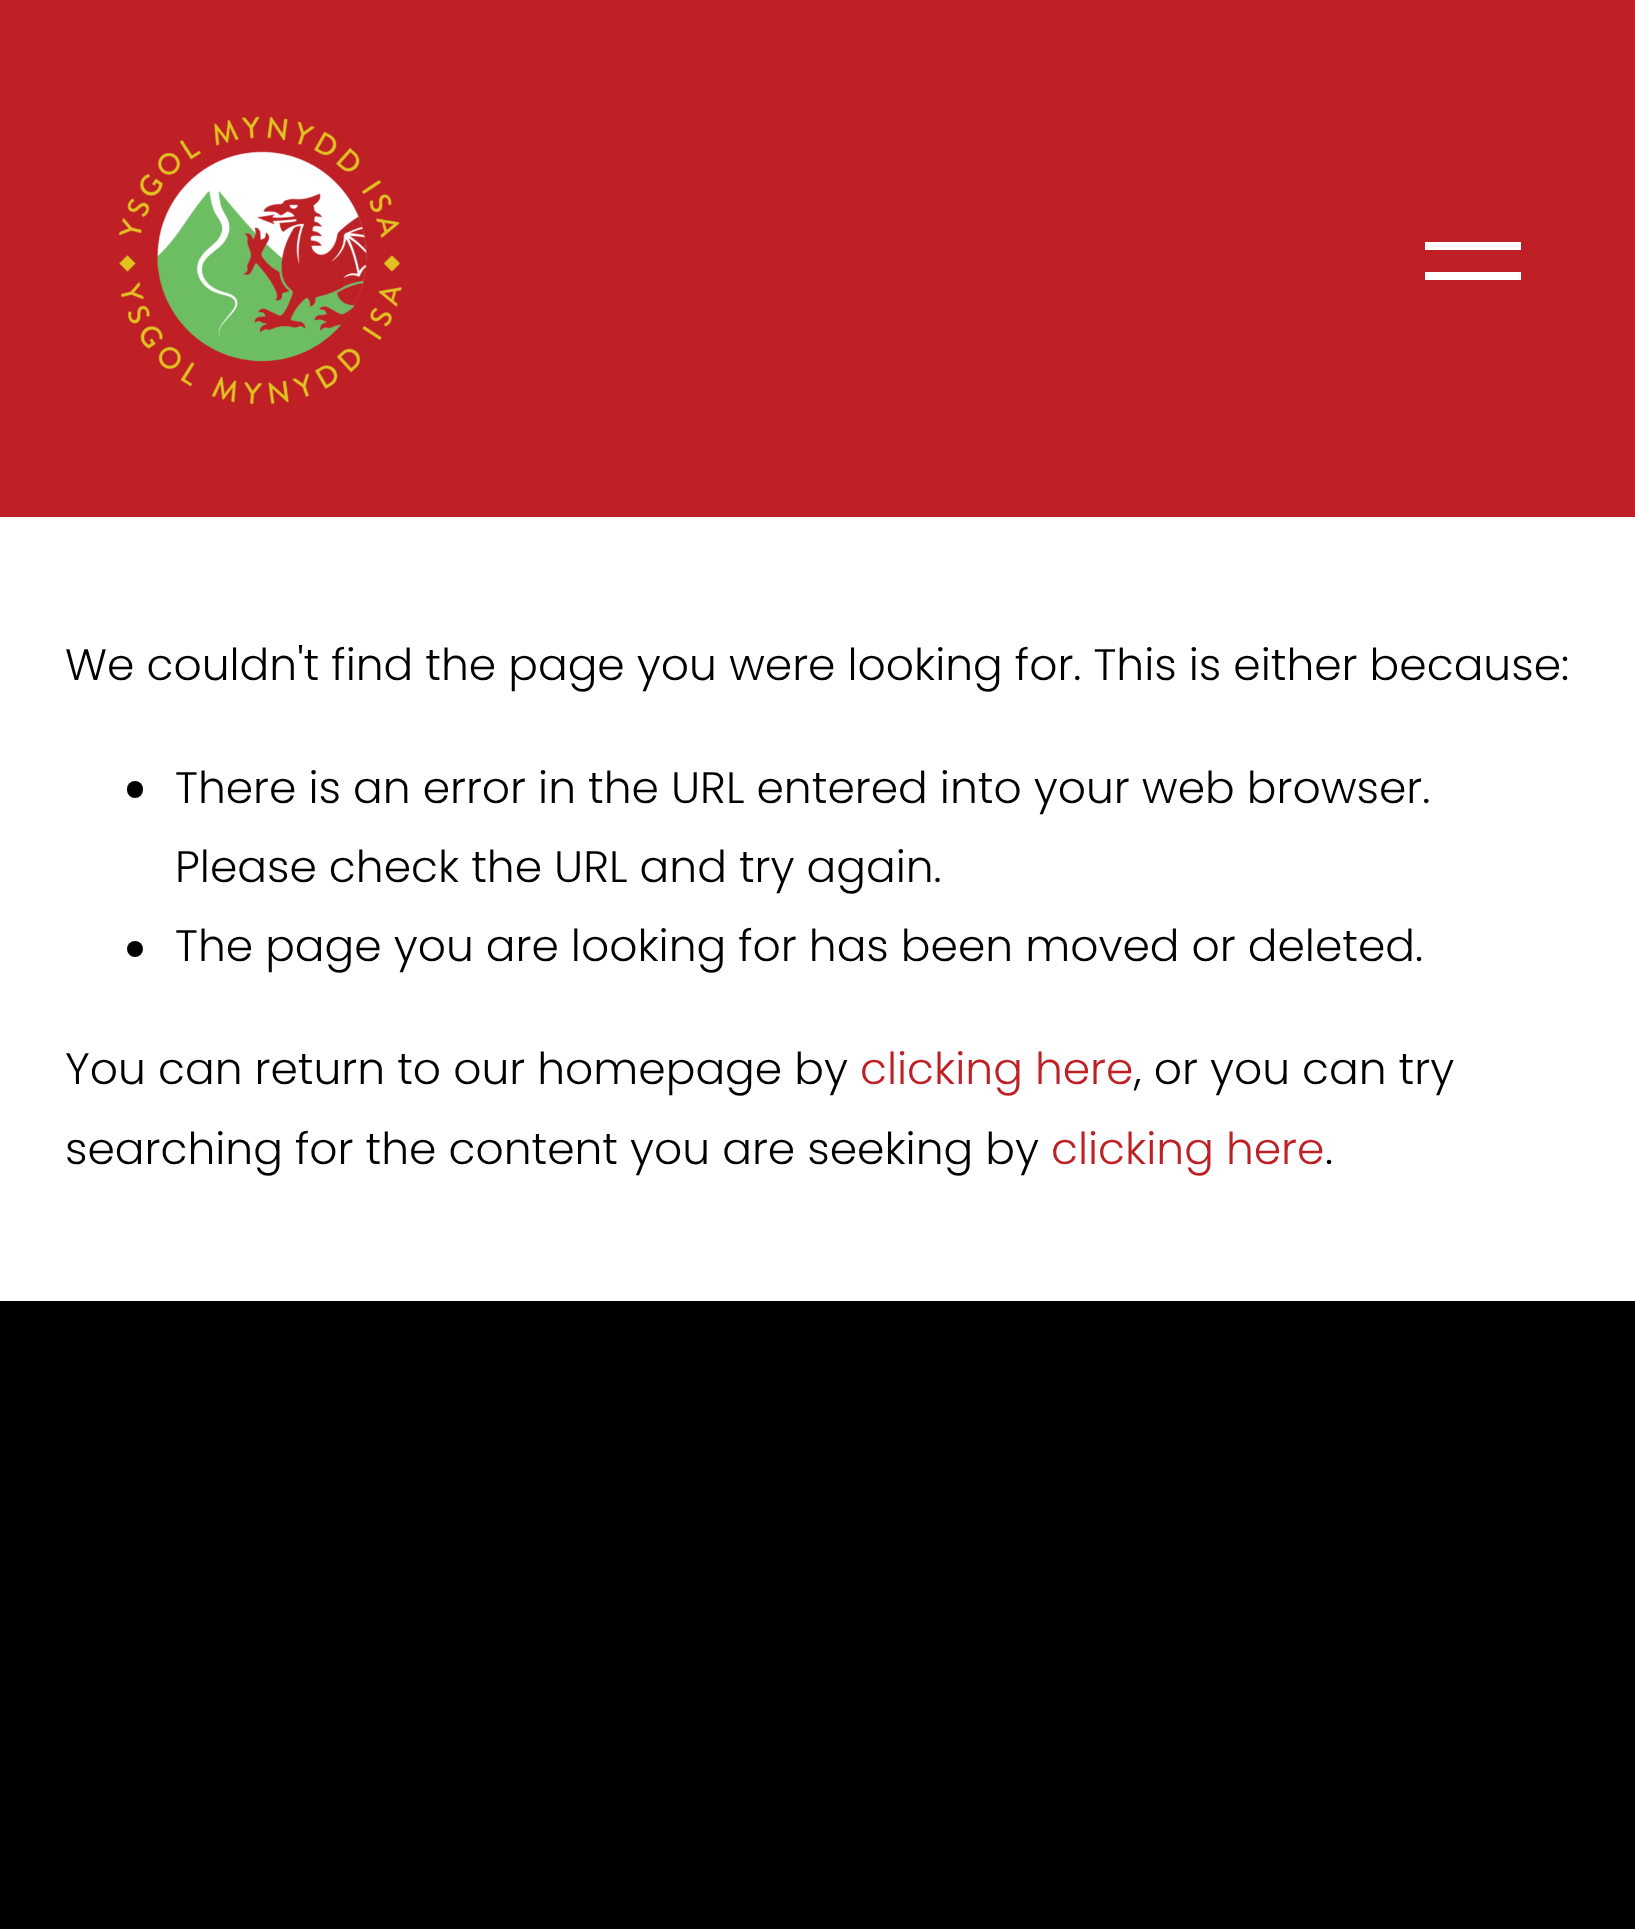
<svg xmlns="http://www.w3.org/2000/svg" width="1635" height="1929">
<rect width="100%" height="100%" fill="#fff"/>
<rect width="1635" height="517" fill="#bf2025"/>
<image x="118" y="116" width="284" height="289" href="media/1.png"/>
<rect x="1425" y="242" width="96" height="8" fill="#fff"/>
<rect x="1425" y="272" width="96" height="8" fill="#fff"/>
<text x="65" y="680" style="font-family:Poppins;font-size:44px;font-weight:300;fill:#000">We couldn't find the page you were looking for. This is either because:</text>
<rect x="127" y="781" width="16" height="17" rx="8" fill="#000"/>
<text x="175" y="803" style="font-family:Poppins;font-size:44px;font-weight:300;fill:#000">There is an error in the URL entered into your web browser.</text>
<text x="175" y="882" style="font-family:Poppins;font-size:44px;font-weight:300;fill:#000">Please check the URL and try again.</text>
<circle cx="135" cy="949" r="8" fill="#000"/>
<text x="175" y="961" style="font-family:Poppins;font-size:44px;font-weight:300;fill:#000">The page you are looking for has been moved or deleted.</text>
<text x="65" y="1084" style="font-family:Poppins;font-size:44px;font-weight:300;fill:#000">You can return to our homepage by</text>
<text x="860" y="1084" style="font-family:Poppins;font-size:44px;font-weight:300;fill:#bf2025">clicking here</text>
<text x="1134" y="1084" style="font-family:Poppins;font-size:44px;font-weight:300;fill:#000">, or you can try</text>
<text x="65" y="1164" style="font-family:Poppins;font-size:44px;font-weight:300;fill:#000">searching for the content you are seeking by</text>
<text x="1051" y="1164" style="font-family:Poppins;font-size:44px;font-weight:300;fill:#bf2025">clicking here</text>
<text x="1325" y="1164" style="font-family:Poppins;font-size:44px;font-weight:300;fill:#000">.</text>
<rect y="1301" width="1635" height="628" fill="#000"/>
</svg>
